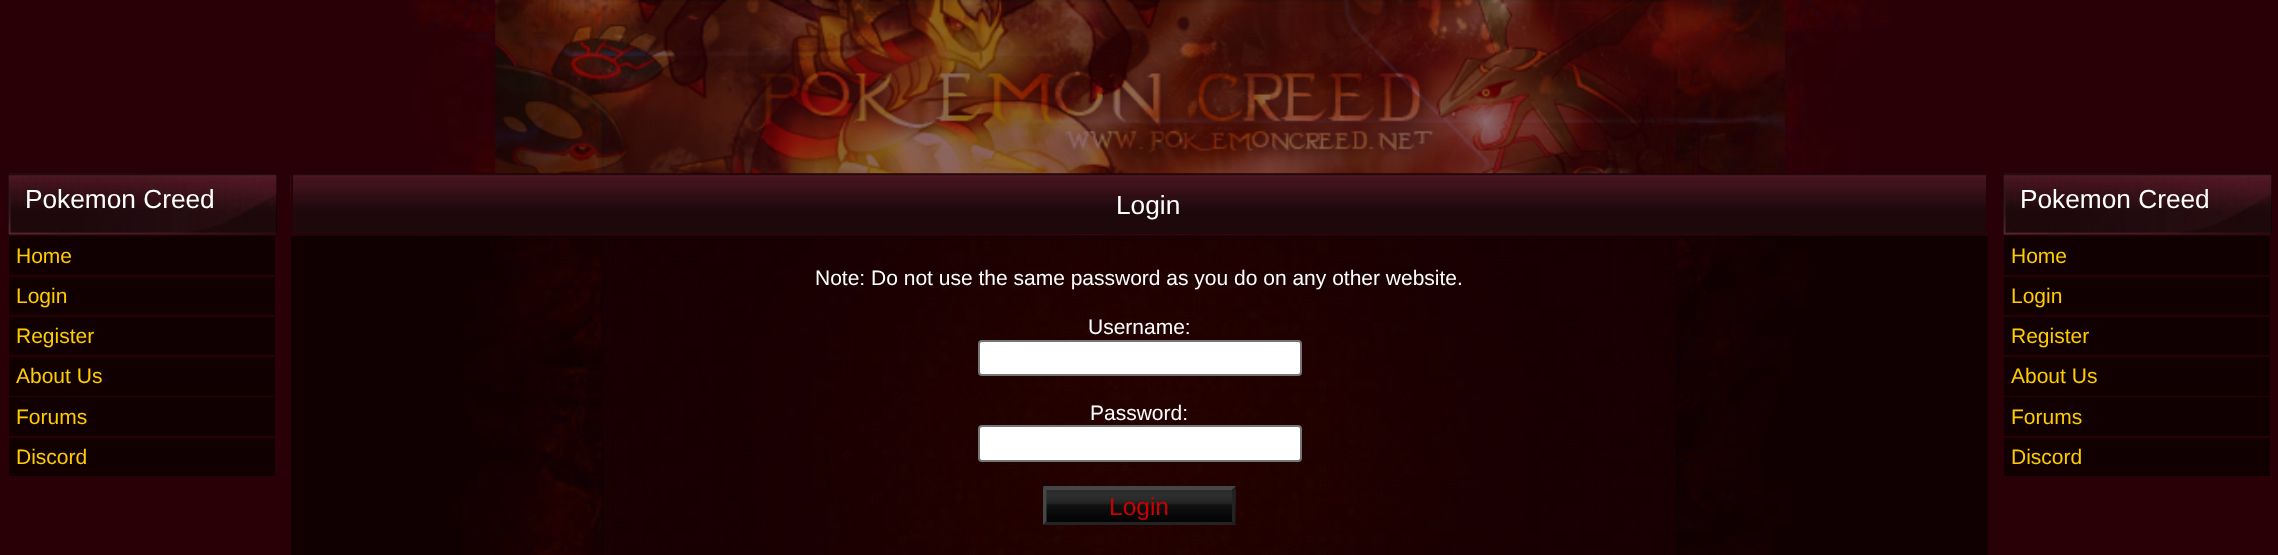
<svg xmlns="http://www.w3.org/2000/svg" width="2278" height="555">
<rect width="100%" height="100%" fill="#290006"/>
<image x="412" y="0" width="1477" height="555" href="media/1.png"/>
<image x="290" y="173" width="1696" height="62" href="media/4.png"/>
<image x="495" y="0" width="1290" height="174" href="media/2.png"/>
<rect x="7" y="173" width="270" height="62" fill="#000"/>
<image x="7" y="173" width="270" height="62" href="media/3.png"/>
<text x="25" y="208" style="font-family:Liberation Sans;font-size:26.25px;fill:#fff">Pokemon Creed</text>
<rect x="9" y="236" width="266" height="39" fill="#100002"/>
<text x="16" y="263" style="font-family:Liberation Sans;font-size:21px;fill:#fc0">Home</text>
<rect x="9" y="277" width="266" height="38" fill="#100002"/>
<text x="16" y="303" style="font-family:Liberation Sans;font-size:21px;fill:#fc0">Login</text>
<rect x="9" y="317" width="266" height="38" fill="#100002"/>
<text x="16" y="343" style="font-family:Liberation Sans;font-size:21px;fill:#fc0">Register</text>
<rect x="9" y="357" width="266" height="39" fill="#100002"/>
<text x="16" y="383" style="font-family:Liberation Sans;font-size:21px;fill:#fc0">About Us</text>
<rect x="9" y="397" width="266" height="39" fill="#100002"/>
<text x="16" y="424" style="font-family:Liberation Sans;font-size:21px;fill:#fc0">Forums</text>
<rect x="9" y="438" width="266" height="38" fill="#100002"/>
<text x="16" y="464" style="font-family:Liberation Sans;font-size:21px;fill:#fc0">Discord</text>
<rect x="434" y="235" width="1385" height="2" fill="#290008"/>
<rect x="291" y="173" width="2" height="63" fill="#290008"/>
<text x="1116" y="214" style="font-family:Liberation Sans;font-size:26.25px;fill:#fff">Login</text>
<rect x="2002" y="173" width="270" height="62" fill="#000"/>
<image x="2002" y="173" width="270" height="62" href="media/5.png"/>
<text x="2020" y="208" style="font-family:Liberation Sans;font-size:26.25px;fill:#fff">Pokemon Creed</text>
<rect x="2004" y="236" width="266" height="39" fill="#100002"/>
<text x="2011" y="263" style="font-family:Liberation Sans;font-size:21px;fill:#fc0">Home</text>
<rect x="2004" y="277" width="266" height="38" fill="#100002"/>
<text x="2011" y="303" style="font-family:Liberation Sans;font-size:21px;fill:#fc0">Login</text>
<rect x="2004" y="317" width="266" height="38" fill="#100002"/>
<text x="2011" y="343" style="font-family:Liberation Sans;font-size:21px;fill:#fc0">Register</text>
<rect x="2004" y="357" width="266" height="39" fill="#100002"/>
<text x="2011" y="383" style="font-family:Liberation Sans;font-size:21px;fill:#fc0">About Us</text>
<rect x="2004" y="397" width="266" height="39" fill="#100002"/>
<text x="2011" y="424" style="font-family:Liberation Sans;font-size:21px;fill:#fc0">Forums</text>
<rect x="2004" y="438" width="266" height="38" fill="#100002"/>
<text x="2011" y="464" style="font-family:Liberation Sans;font-size:21px;fill:#fc0">Discord</text>
<rect x="291" y="236" width="1697" height="319" fill="#00000099"/>
<text x="815" y="285" style="font-family:Liberation Sans;font-size:21px;fill:#fff">Note: Do not use the same password as you do on any other website.</text>
<text x="1088" y="334" style="font-family:Liberation Sans;font-size:21px;fill:#fff">Username:</text>
<rect x="979" y="341" width="322" height="34" rx="3" fill="#fff" stroke="#767676" stroke-width="2"/>
<text x="1090" y="420" style="font-family:Liberation Sans;font-size:21px;fill:#fff">Password:</text>
<rect x="979" y="426" width="322" height="35" rx="3" fill="#fff" stroke="#767676" stroke-width="2"/>
<image x="1043" y="490" width="193" height="35" href="media/6.png"/>
<path d="M1043 486h193l-4 4h-186z" fill="#464646"/>
<path d="M1235.5 486.5v38.5l-3.5-3.5v-31.5z" fill="#232323"/>
<path d="M1236 525h-193l3-3h186z" fill="#232323"/>
<path d="M1043 525v-38.5l3.5 3.5v31.5z" fill="#464646"/>
<text x="1109" y="515" style="font-family:Liberation Sans;font-size:24.5px;fill:#cd0000">Login</text>
</svg>
